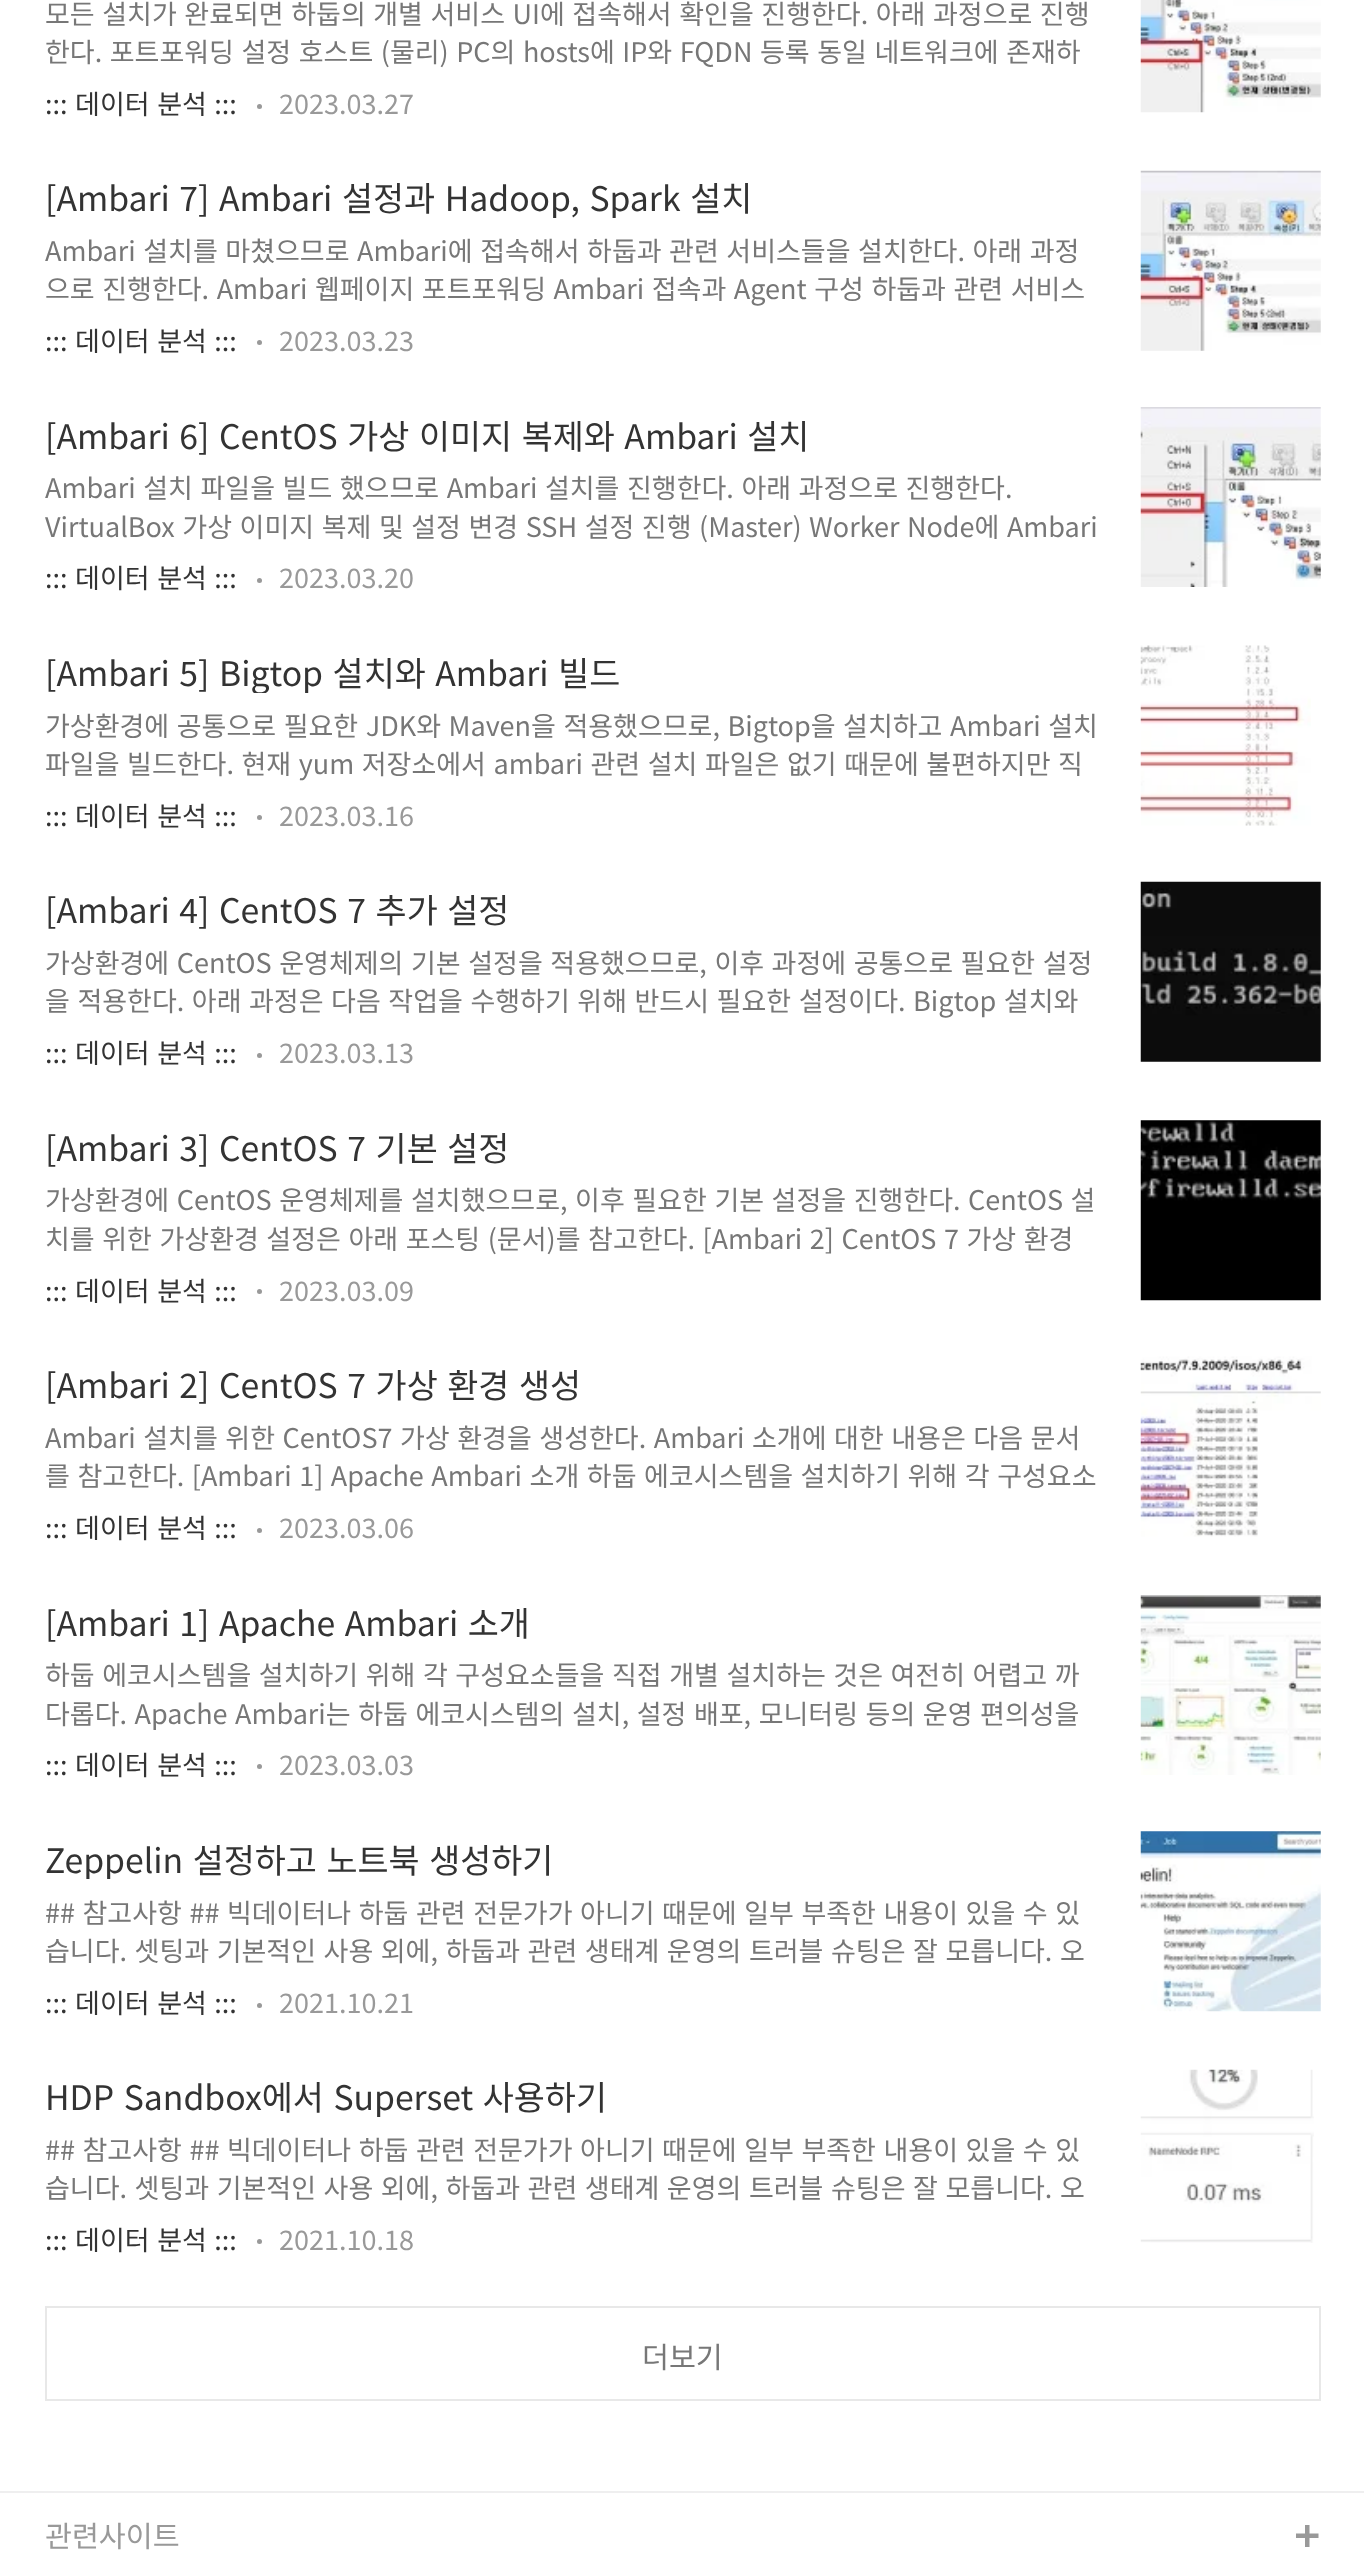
<svg xmlns="http://www.w3.org/2000/svg" width="1364" height="2564">
<defs>
<clipPath id="clip1"><rect x="45" y="176" width="1055" height="42"/></clipPath>
<clipPath id="clip2"><rect x="45" y="650" width="1055" height="43"/></clipPath>
<clipPath id="clip3"><rect x="45" y="1600" width="1055" height="43"/></clipPath>
<clipPath id="clip4"><rect x="45" y="1654" width="1055" height="76"/></clipPath>
<clipPath id="clip5"><rect x="45" y="1836" width="1055" height="43"/></clipPath>
<clipPath id="clip6"><rect x="45" y="2075" width="1055" height="42"/></clipPath>
</defs>
<rect width="100%" height="100%" fill="#fff"/>
<text x="45" y="24" word-spacing="1.5" style="font-family:Noto Sans KR;font-size:27px;fill:#777">모든 설치가 완료되면 하둡의 개별 서비스 UI에 접속해서 확인을 진행한다. 아래 과정으로 진행</text>
<text x="45" y="62" word-spacing="1.5" style="font-family:Noto Sans KR;font-size:27px;fill:#777">한다. 포트포워딩 설정 호스트 (물리) PC의 hosts에 IP와 FQDN 등록 동일 네트워크에 존재하</text>
<text x="45" y="114" word-spacing="1.5" style="font-family:Noto Sans KR;font-size:27px;fill:#333">::: 데이터 분석 :::</text>
<circle cx="259.5" cy="106.5" r="2.5" fill="#999"/>
<text x="279" y="114" style="font-family:Noto Sans KR;font-size:27px;fill:#999">2023.03.27</text>
<image x="1140" y="0" width="181" height="113" href="media/1.png"/>
<g clip-path="url(#clip1)">
<text x="45" y="211" word-spacing="2" style="font-family:Noto Sans KR;font-size:33.75px;fill:#333">[Ambari 7] Ambari 설정과 Hadoop, Spark 설치</text>
</g>
<text x="45" y="261" word-spacing="1.5" style="font-family:Noto Sans KR;font-size:27px;fill:#777">Ambari 설치를 마쳤으므로 Ambari에 접속해서 하둡과 관련 서비스들을 설치한다. 아래 과정</text>
<text x="45" y="299" word-spacing="1.5" style="font-family:Noto Sans KR;font-size:27px;fill:#777">으로 진행한다. Ambari 웹페이지 포트포워딩 Ambari 접속과 Agent 구성 하둡과 관련 서비스</text>
<text x="45" y="351" word-spacing="1.5" style="font-family:Noto Sans KR;font-size:27px;fill:#333">::: 데이터 분석 :::</text>
<circle cx="259.5" cy="342.5" r="2.5" fill="#999"/>
<text x="279" y="351" style="font-family:Noto Sans KR;font-size:27px;fill:#999">2023.03.23</text>
<image x="1140" y="170" width="181" height="181" href="media/2.png"/>
<text x="45" y="449" word-spacing="2" style="font-family:Noto Sans KR;font-size:33.75px;fill:#333">[Ambari 6] CentOS 가상 이미지 복제와 Ambari 설치</text>
<text x="45" y="498" word-spacing="1.5" style="font-family:Noto Sans KR;font-size:27px;fill:#777">Ambari 설치 파일을 빌드 했으므로 Ambari 설치를 진행한다. 아래 과정으로 진행한다.</text>
<text x="45" y="537" word-spacing="1.5" style="font-family:Noto Sans KR;font-size:27px;fill:#777">VirtualBox 가상 이미지 복제 및 설정 변경 SSH 설정 진행 (Master) Worker Node에 Ambari</text>
<text x="45" y="588" word-spacing="1.5" style="font-family:Noto Sans KR;font-size:27px;fill:#333">::: 데이터 분석 :::</text>
<circle cx="259.5" cy="580.5" r="2.5" fill="#999"/>
<text x="279" y="588" style="font-family:Noto Sans KR;font-size:27px;fill:#999">2023.03.20</text>
<image x="1140" y="407" width="181" height="180" href="media/3.png"/>
<g clip-path="url(#clip2)">
<text x="45" y="686" word-spacing="2" style="font-family:Noto Sans KR;font-size:33.75px;fill:#333">[Ambari 5] Bigtop 설치와 Ambari 빌드</text>
</g>
<text x="45" y="736" word-spacing="1.5" style="font-family:Noto Sans KR;font-size:27px;fill:#777">가상환경에 공통으로 필요한 JDK와 Maven을 적용했으므로, Bigtop을 설치하고 Ambari 설치</text>
<text x="45" y="774" word-spacing="1.5" style="font-family:Noto Sans KR;font-size:27px;fill:#777">파일을 빌드한다. 현재 yum 저장소에서 ambari 관련 설치 파일은 없기 때문에 불편하지만 직</text>
<text x="45" y="826" word-spacing="1.5" style="font-family:Noto Sans KR;font-size:27px;fill:#333">::: 데이터 분석 :::</text>
<circle cx="259.5" cy="817.5" r="2.5" fill="#999"/>
<text x="279" y="826" style="font-family:Noto Sans KR;font-size:27px;fill:#999">2023.03.16</text>
<image x="1140" y="645" width="171" height="181" href="media/4.png"/>
<text x="45" y="923" word-spacing="2" style="font-family:Noto Sans KR;font-size:33.75px;fill:#333">[Ambari 4] CentOS 7 추가 설정</text>
<text x="45" y="973" word-spacing="1.5" style="font-family:Noto Sans KR;font-size:27px;fill:#777">가상환경에 CentOS 운영체제의 기본 설정을 적용했으므로, 이후 과정에 공통으로 필요한 설정</text>
<text x="45" y="1011" word-spacing="1.5" style="font-family:Noto Sans KR;font-size:27px;fill:#777">을 적용한다. 아래 과정은 다음 작업을 수행하기 위해 반드시 필요한 설정이다. Bigtop 설치와</text>
<text x="45" y="1063" word-spacing="1.5" style="font-family:Noto Sans KR;font-size:27px;fill:#333">::: 데이터 분석 :::</text>
<circle cx="259.5" cy="1055.5" r="2.5" fill="#999"/>
<text x="279" y="1063" style="font-family:Noto Sans KR;font-size:27px;fill:#999">2023.03.13</text>
<image x="1140" y="881" width="181" height="181" href="media/5.png"/>
<text x="45" y="1161" word-spacing="2" style="font-family:Noto Sans KR;font-size:33.75px;fill:#333">[Ambari 3] CentOS 7 기본 설정</text>
<text x="45" y="1210" word-spacing="1.5" style="font-family:Noto Sans KR;font-size:27px;fill:#777">가상환경에 CentOS 운영체제를 설치했으므로, 이후 필요한 기본 설정을 진행한다. CentOS 설</text>
<text x="45" y="1249" word-spacing="1.5" style="font-family:Noto Sans KR;font-size:27px;fill:#777">치를 위한 가상환경 설정은 아래 포스팅 (문서)를 참고한다. [Ambari 2] CentOS 7 가상 환경</text>
<text x="45" y="1301" word-spacing="1.5" style="font-family:Noto Sans KR;font-size:27px;fill:#333">::: 데이터 분석 :::</text>
<circle cx="259.5" cy="1291.5" r="2.5" fill="#999"/>
<text x="279" y="1301" style="font-family:Noto Sans KR;font-size:27px;fill:#999">2023.03.09</text>
<image x="1140" y="1120" width="181" height="181" href="media/6.png"/>
<text x="45" y="1398" word-spacing="2" style="font-family:Noto Sans KR;font-size:33.75px;fill:#333">[Ambari 2] CentOS 7 가상 환경 생성</text>
<text x="45" y="1448" word-spacing="1.5" style="font-family:Noto Sans KR;font-size:27px;fill:#777">Ambari 설치를 위한 CentOS7 가상 환경을 생성한다. Ambari 소개에 대한 내용은 다음 문서</text>
<text x="45" y="1486" word-spacing="1.5" style="font-family:Noto Sans KR;font-size:27px;fill:#777">를 참고한다. [Ambari 1] Apache Ambari 소개 하둡 에코시스템을 설치하기 위해 각 구성요소</text>
<text x="45" y="1538" word-spacing="1.5" style="font-family:Noto Sans KR;font-size:27px;fill:#333">::: 데이터 분석 :::</text>
<circle cx="259.5" cy="1530.5" r="2.5" fill="#999"/>
<text x="279" y="1538" style="font-family:Noto Sans KR;font-size:27px;fill:#999">2023.03.06</text>
<image x="1140" y="1356" width="181" height="181" href="media/7.png"/>
<g clip-path="url(#clip3)">
<text x="45" y="1636" word-spacing="2" style="font-family:Noto Sans KR;font-size:33.75px;fill:#333">[Ambari 1] Apache Ambari 소개</text>
</g>
<text x="45" y="1685" word-spacing="1.5" style="font-family:Noto Sans KR;font-size:27px;fill:#777">하둡 에코시스템을 설치하기 위해 각 구성요소들을 직접 개별 설치하는 것은 여전히 어렵고 까</text>
<g clip-path="url(#clip4)">
<text x="45" y="1724" word-spacing="1.5" style="font-family:Noto Sans KR;font-size:27px;fill:#777">다롭다. Apache Ambari는 하둡 에코시스템의 설치, 설정 배포, 모니터링 등의 운영 편의성을</text>
</g>
<text x="45" y="1775" word-spacing="1.5" style="font-family:Noto Sans KR;font-size:27px;fill:#333">::: 데이터 분석 :::</text>
<circle cx="259.5" cy="1766.5" r="2.5" fill="#999"/>
<text x="279" y="1775" style="font-family:Noto Sans KR;font-size:27px;fill:#999">2023.03.03</text>
<image x="1140" y="1595" width="181" height="180" href="media/8.png"/>
<g clip-path="url(#clip5)">
<text x="45" y="1873" word-spacing="2" style="font-family:Noto Sans KR;font-size:33.75px;fill:#333">Zeppelin 설정하고 노트북 생성하기</text>
</g>
<text x="45" y="1923" word-spacing="1.5" style="font-family:Noto Sans KR;font-size:27px;fill:#777">## 참고사항 ## 빅데이터나 하둡 관련 전문가가 아니기 때문에 일부 부족한 내용이 있을 수 있</text>
<text x="45" y="1961" word-spacing="1.5" style="font-family:Noto Sans KR;font-size:27px;fill:#777">습니다. 셋팅과 기본적인 사용 외에, 하둡과 관련 생태계 운영의 트러블 슈팅은 잘 모릅니다. 오</text>
<text x="45" y="2013" word-spacing="1.5" style="font-family:Noto Sans KR;font-size:27px;fill:#333">::: 데이터 분석 :::</text>
<circle cx="259.5" cy="2005.5" r="2.5" fill="#999"/>
<text x="279" y="2013" style="font-family:Noto Sans KR;font-size:27px;fill:#999">2021.10.21</text>
<image x="1140" y="1831" width="181" height="181" href="media/9.png"/>
<g clip-path="url(#clip6)">
<text x="45" y="2110" word-spacing="2" style="font-family:Noto Sans KR;font-size:33.75px;fill:#333">HDP Sandbox에서 Superset 사용하기</text>
</g>
<text x="45" y="2160" word-spacing="1.5" style="font-family:Noto Sans KR;font-size:27px;fill:#777">## 참고사항 ## 빅데이터나 하둡 관련 전문가가 아니기 때문에 일부 부족한 내용이 있을 수 있</text>
<text x="45" y="2198" word-spacing="1.5" style="font-family:Noto Sans KR;font-size:27px;fill:#777">습니다. 셋팅과 기본적인 사용 외에, 하둡과 관련 생태계 운영의 트러블 슈팅은 잘 모릅니다. 오</text>
<text x="45" y="2250" word-spacing="1.5" style="font-family:Noto Sans KR;font-size:27px;fill:#333">::: 데이터 분석 :::</text>
<circle cx="259.5" cy="2241.5" r="2.5" fill="#999"/>
<text x="279" y="2250" style="font-family:Noto Sans KR;font-size:27px;fill:#999">2021.10.18</text>
<image x="1140" y="2069" width="174" height="174" href="media/10.png"/>
<rect x="46" y="2307" width="1274" height="93" fill="none" stroke="#e8e8e8" stroke-width="2"/>
<text x="642" y="2368" style="font-family:Noto Sans KR;font-size:29.25px;fill:#777">더보기</text>
<rect y="2491" width="1364" height="2" fill="#efefef"/>
<image x="1296" y="2525" width="23" height="22" href="media/11.png"/>
<text x="45" y="2547" style="font-family:Noto Sans KR;font-size:29.25px;fill:#999">관련사이트</text>
</svg>
